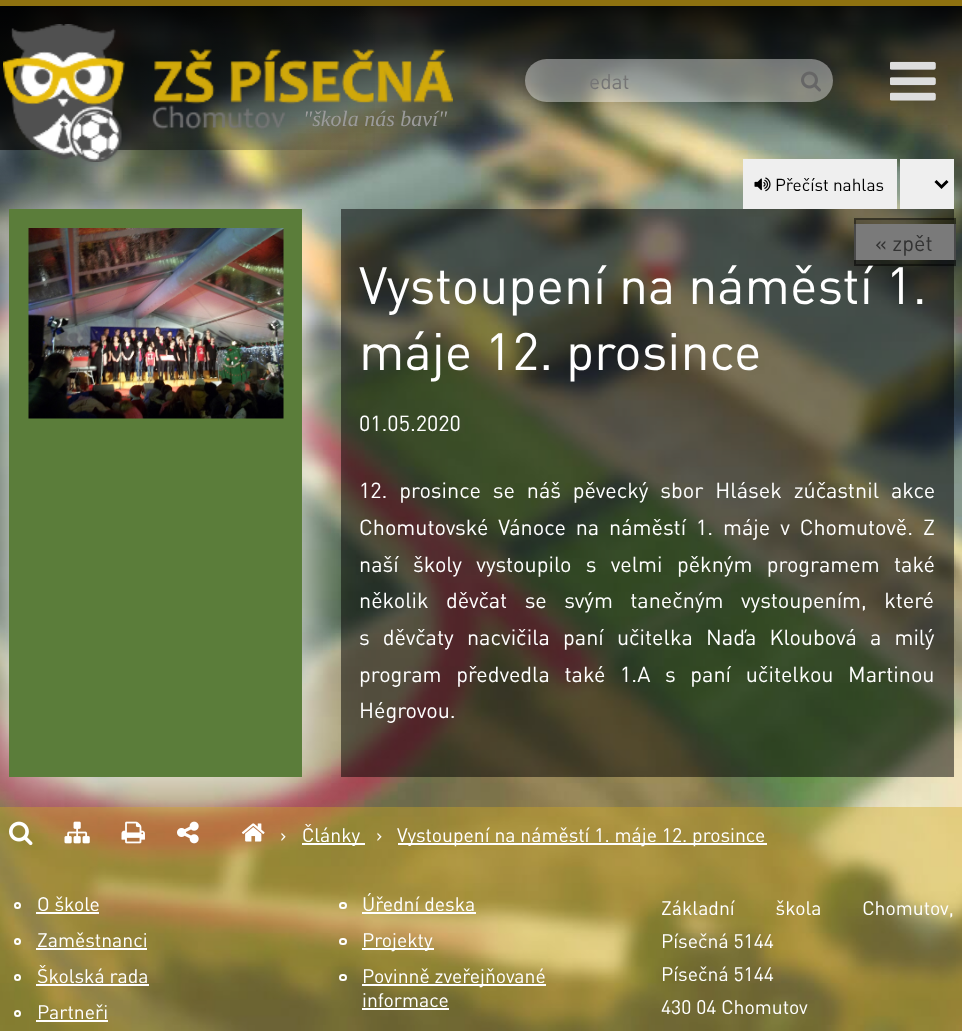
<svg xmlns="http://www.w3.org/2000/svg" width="962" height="1031">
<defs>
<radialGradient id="g1" gradientUnits="userSpaceOnUse" cx="0" cy="78" r="966"><stop offset="0" stop-color="#000" stop-opacity="0.8"/><stop offset="0.4" stop-color="#000" stop-opacity="0"/></radialGradient>
</defs>
<rect width="100%" height="100%" fill="#fff"/>
<image x="0" y="6" width="962" height="1025" href="media/1.png"/>
<rect width="962" height="6" fill="#8e7110"/>
<rect x="9" y="209" width="293" height="568" fill="#fff" filter="blur(30px)"/>
<rect y="6" width="375" height="144" fill="url(#g1)"/>
<text x="303" y="126" style="font-family:Liberation Serif;font-size:22px;font-style:italic;fill:#9b9b9b">"škola nás baví"</text>
<image x="3" y="24" width="450" height="138" href="media/2.png"/>
<rect x="525" y="59" width="308" height="43" rx="21.5" fill="#ffffff66"/>
<text x="589" y="89" style="font-family:DIN;font-size:21px;fill:#757575">edat</text>
<image x="801" y="71" width="20" height="21" href="media/3.png"/>
<image x="890" y="61" width="46" height="40" href="media/4.png"/>
<rect x="743" y="159" width="154" height="50" fill="#efefef"/>
<image x="754" y="177" width="17" height="15" href="media/5.png"/>
<text x="775" y="191" style="font-family:DIN;font-size:17.25px;fill:#000">Přečíst nahlas</text>
<rect x="900" y="159" width="54" height="50" fill="#efefef"/>
<path d="M935.5 181l6 6l6-6" fill="none" stroke="#000" stroke-width="3"/>
<rect x="9" y="209" width="293" height="568" fill="#5b7d3a"/>
<image x="28" y="228" width="256" height="191" href="media/6.png"/>
<rect x="341" y="209" width="613" height="568" fill="#00000080"/>
<rect x="854" y="224" width="102" height="36" fill="#999"/>
<text x="359" y="304" style="font-family:DIN;font-size:51.75px;fill:#fff">Vystoupení na náměstí 1.</text>
<rect x="854" y="218" width="102" height="48" fill="#00000033"/>
<rect x="855" y="219" width="100" height="46" fill="none" stroke="#00000066" stroke-width="2"/>
<text x="875" y="251" style="font-family:DIN;font-size:21.6px;fill:#333">« zpět</text>
<text x="359" y="370" style="font-family:DIN;font-size:51.75px;fill:#fff">máje 12. prosince</text>
<text x="359" y="431" style="font-family:DIN;font-size:21.6px;fill:#fff">01.05.2020</text>
<text x="359" y="498" word-spacing="6.5" style="font-family:DIN;font-size:21.6px;fill:#fff">12. prosince se náš pěvecký sbor Hlásek zúčastnil akce</text>
<text x="359" y="535" word-spacing="4.5" style="font-family:DIN;font-size:21.6px;fill:#fff">Chomutovské Vánoce na náměstí 1. máje v Chomutově. Z</text>
<text x="359" y="572" word-spacing="9" style="font-family:DIN;font-size:21.6px;fill:#fff">naší školy vystoupilo s velmi pěkným programem také</text>
<text x="359" y="608" word-spacing="12" style="font-family:DIN;font-size:21.6px;fill:#fff">několik děvčat se svým tanečným vystoupením, které</text>
<text x="359" y="645" word-spacing="7.75" style="font-family:DIN;font-size:21.6px;fill:#fff">s děvčaty nacvičila paní učitelka Naďa Kloubová a milý</text>
<text x="359" y="682" word-spacing="9.25" style="font-family:DIN;font-size:21.6px;fill:#fff">program předvedla také 1.A s paní učitelkou Martinou</text>
<text x="359" y="718" style="font-family:DIN;font-size:21.6px;fill:#fff">Hégrovou.</text>
<rect y="807" width="962" height="224" fill="#d1aa2166"/>
<image x="9" y="821" width="24" height="25" href="media/7.png"/>
<image x="64" y="821" width="26" height="23" href="media/8.png"/>
<image x="121" y="821" width="24" height="23" href="media/9.png"/>
<image x="177" y="821" width="22" height="23" href="media/10.png"/>
<image x="241" y="823" width="24" height="19" href="media/11.png"/>
<text x="280" y="842" style="font-family:DIN;font-size:19.4px;fill:#fff">›</text>
<rect x="302" y="843" width="63" height="2" fill="#fff"/>
<text x="302" y="842" style="font-family:DIN;font-size:19.4px;fill:#fff">Články</text>
<text x="376" y="842" style="font-family:DIN;font-size:19.4px;fill:#fff">›</text>
<rect x="398" y="843" width="369" height="2" fill="#fff"/>
<text x="397" y="842" style="font-family:DIN;font-size:19.4px;fill:#fff">Vystoupení na náměstí 1. máje 12. prosince</text>
<circle cx="17.5" cy="905.5" r="2.5" fill="none" stroke="#fff" stroke-width="2"/>
<text x="37" y="911" style="font-family:DIN;font-size:19.4px;fill:#fff">O škole</text>
<rect x="36" y="912" width="63" height="2" fill="#fff"/>
<circle cx="17.5" cy="941.5" r="2.5" fill="none" stroke="#fff" stroke-width="2"/>
<text x="37" y="947" style="font-family:DIN;font-size:19.4px;fill:#fff">Zaměstnanci</text>
<rect x="36" y="948" width="111" height="2" fill="#fff"/>
<circle cx="17.5" cy="977.5" r="2.5" fill="none" stroke="#fff" stroke-width="2"/>
<text x="37" y="983" style="font-family:DIN;font-size:19.4px;fill:#fff">Školská rada</text>
<rect x="36" y="984" width="113" height="2" fill="#fff"/>
<circle cx="17.5" cy="1013.5" r="2.5" fill="none" stroke="#fff" stroke-width="2"/>
<text x="37" y="1019" style="font-family:DIN;font-size:19.4px;fill:#fff">Partneři</text>
<rect x="36" y="1020" width="72" height="2" fill="#fff"/>
<rect x="340" y="903" width="6" height="5" rx="2.5" fill="none" stroke="#fff" stroke-width="2"/>
<text x="362" y="911" style="font-family:DIN;font-size:19.4px;fill:#fff">Úřední deska</text>
<rect x="362" y="912" width="114" height="2" fill="#fff"/>
<rect x="340" y="939" width="6" height="5" rx="2.5" fill="none" stroke="#fff" stroke-width="2"/>
<rect x="362" y="948" width="72" height="2" fill="#fff"/>
<text x="362" y="947" style="font-family:DIN;font-size:19.4px;fill:#fff">Projekty</text>
<rect x="340" y="975" width="6" height="5" rx="2.5" fill="none" stroke="#fff" stroke-width="2"/>
<rect x="362" y="984" width="184" height="2" fill="#fff"/>
<text x="362" y="983" style="font-family:DIN;font-size:19.4px;fill:#fff">Povinně zveřejňované</text>
<text x="362" y="1007" style="font-family:DIN;font-size:19.4px;fill:#fff">informace</text>
<rect x="362" y="1008" width="87" height="2" fill="#fff"/>
<text x="661" y="915" word-spacing="36" style="font-family:DIN;font-size:19.4px;fill:#fff">Základní škola Chomutov,</text>
<text x="661" y="948" style="font-family:DIN;font-size:19.4px;fill:#fff">Písečná 5144</text>
<text x="661" y="981" style="font-family:DIN;font-size:19.4px;fill:#fff">Písečná 5144</text>
<text x="661" y="1014" style="font-family:DIN;font-size:19.4px;fill:#fff">430 04 Chomutov</text>
</svg>
